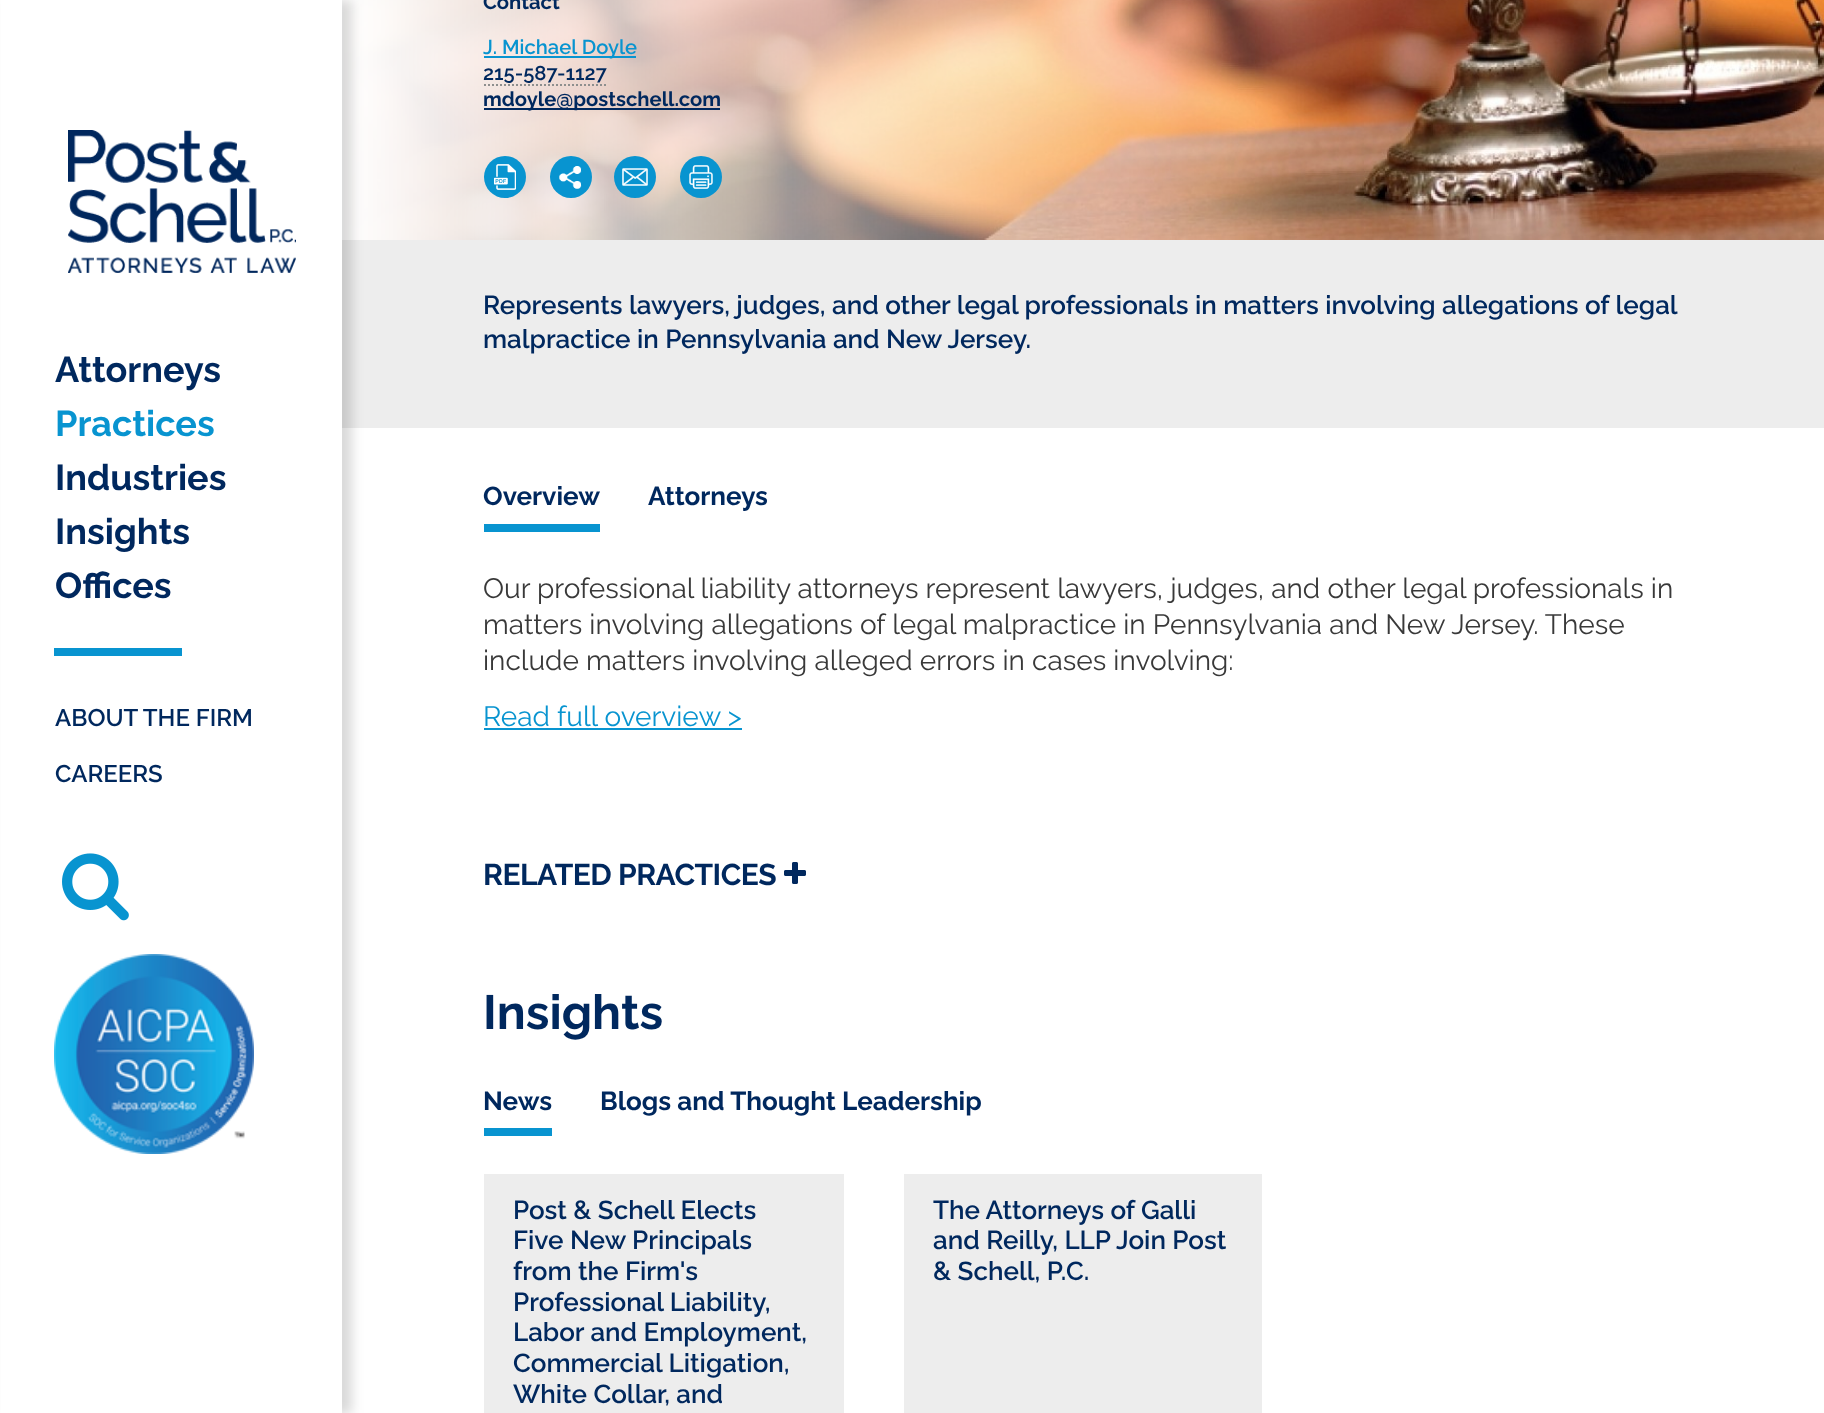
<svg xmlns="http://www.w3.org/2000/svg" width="1824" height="1413">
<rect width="100%" height="100%" fill="#fff"/>
<image x="342" y="0" width="1482" height="240" href="media/4.png"/>
<rect x="342" y="240" width="1482" height="188" fill="#ededed"/>
<rect x="10" width="342" height="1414" fill="#00000026" filter="blur(6px)"/>
<rect x="1" width="341" height="1413" fill="#fff"/>
<image x="68" y="130" width="228" height="143" href="media/1.png"/>
<text x="55" y="382" style="font-family:Raleway;font-size:36px;font-weight:bold;fill:#00285e">Attorneys</text>
<text x="55" y="436" style="font-family:Raleway;font-size:36px;font-weight:bold;fill:#0894d0">Practices</text>
<text x="55" y="490" style="font-family:Raleway;font-size:36px;font-weight:bold;fill:#00285e">Industries</text>
<text x="55" y="544" style="font-family:Raleway;font-size:36px;font-weight:bold;fill:#00285e">Insights</text>
<text x="55" y="598" style="font-family:Raleway;font-size:36px;font-weight:bold;fill:#00285e">Offices</text>
<rect x="54" y="648" width="128" height="8" fill="#0894d0"/>
<text x="55" y="726" style="font-family:Raleway;font-size:24px;font-weight:600;fill:#00285e">ABOUT THE FIRM</text>
<text x="55" y="782" style="font-family:Raleway;font-size:24px;font-weight:600;fill:#00285e">CAREERS</text>
<image x="62" y="853" width="67" height="68" href="media/2.png"/>
<image x="54" y="954" width="200" height="200" href="media/3.png"/>
<text x="483" y="9" style="font-family:Raleway;font-size:20.2px;font-weight:bold;fill:#00285e">Contact</text>
<rect x="484" y="56" width="152" height="2" fill="#0894d0"/>
<text x="483" y="54" style="font-family:Raleway;font-size:20.2px;font-weight:600;fill:#0894d0">J. Michael Doyle</text>
<text x="483" y="80" style="font-family:Raleway;font-size:20.2px;font-weight:600;fill:#00285e">215-587-1127</text>
<path d="M484 85h122" fill="none" stroke="#8e8f8e" stroke-width="2" stroke-dasharray="2 2"/>
<rect x="484" y="108" width="236" height="2" fill="#00285e"/>
<text x="483" y="106" style="font-family:Raleway;font-size:20.2px;font-weight:bold;fill:#00285e">mdoyle@postschell.com</text>
<circle cx="505" cy="177" r="21" fill="#0894d0"/>
<image x="494" y="164" width="22" height="26" href="media/5.png"/>
<circle cx="571" cy="177" r="21" fill="#0894d0"/>
<image x="559" y="166" width="23" height="23" href="media/6.png"/>
<circle cx="635" cy="177" r="21" fill="#0894d0"/>
<image x="622" y="168" width="26" height="18" href="media/7.png"/>
<circle cx="701" cy="177" r="21" fill="#0894d0"/>
<image x="689" y="165" width="24" height="24" href="media/8.png"/>
<text x="483" y="314" style="font-family:Raleway;font-size:26px;font-weight:600;fill:#00285e">Represents lawyers, judges, and other legal professionals in matters involving allegations of legal</text>
<text x="483" y="348" style="font-family:Raleway;font-size:26px;font-weight:600;fill:#00285e">malpractice in Pennsylvania and New Jersey.</text>
<rect x="484" y="524" width="116" height="8" fill="#0894d0"/>
<text x="483" y="505" style="font-family:Raleway;font-size:26px;font-weight:bold;fill:#00285e">Overview</text>
<text x="648" y="505" style="font-family:Raleway;font-size:26px;font-weight:bold;fill:#00285e">Attorneys</text>
<text x="483" y="598" style="font-family:Raleway;font-size:28px;fill:#393939">Our professional liability attorneys represent lawyers, judges, and other legal professionals in</text>
<text x="483" y="634" style="font-family:Raleway;font-size:28px;fill:#393939">matters involving allegations of legal malpractice in Pennsylvania and New Jersey. These</text>
<text x="483" y="670" style="font-family:Raleway;font-size:28px;fill:#393939">include matters involving alleged errors in cases involving:</text>
<text x="483" y="726" style="font-family:Raleway;font-size:28px;fill:#0894d0">Read full overview &gt;</text>
<rect x="484" y="728" width="258" height="2" fill="#0894d0"/>
<text x="483" y="885" style="font-family:Raleway;font-size:30px;font-weight:bold;letter-spacing:-0.5px;fill:#00285e">RELATED PRACTICES</text>
<image x="784" y="862" width="22" height="22" href="media/9.png"/>
<text x="483" y="1029" style="font-family:Raleway;font-size:48px;font-weight:bold;fill:#00285e">Insights</text>
<rect x="484" y="1128" width="68" height="8" fill="#0894d0"/>
<text x="483" y="1110" style="font-family:Raleway;font-size:26px;font-weight:bold;fill:#00285e">News</text>
<text x="600" y="1110" style="font-family:Raleway;font-size:26px;font-weight:bold;fill:#00285e">Blogs and Thought Leadership</text>
<rect x="484" y="1174" width="360" height="239" fill="#ededed"/>
<text x="513" y="1219" style="font-family:Raleway;font-size:26px;font-weight:600;fill:#00285e">Post &amp; Schell Elects</text>
<text x="513" y="1249" style="font-family:Raleway;font-size:26px;font-weight:600;fill:#00285e">Five New Principals</text>
<text x="513" y="1280" style="font-family:Raleway;font-size:26px;font-weight:600;fill:#00285e">from the Firm's</text>
<text x="513" y="1311" style="font-family:Raleway;font-size:26px;font-weight:600;fill:#00285e">Professional Liability,</text>
<text x="513" y="1341" style="font-family:Raleway;font-size:26px;font-weight:600;fill:#00285e">Labor and Employment,</text>
<text x="513" y="1372" style="font-family:Raleway;font-size:26px;font-weight:600;fill:#00285e">Commercial Litigation,</text>
<text x="513" y="1403" style="font-family:Raleway;font-size:26px;font-weight:600;fill:#00285e">White Collar, and</text>
<rect x="904" y="1174" width="358" height="239" fill="#ededed"/>
<text x="933" y="1219" style="font-family:Raleway;font-size:26px;font-weight:600;fill:#00285e">The Attorneys of Galli</text>
<text x="933" y="1249" style="font-family:Raleway;font-size:26px;font-weight:600;fill:#00285e">and Reilly, LLP Join Post</text>
<text x="933" y="1280" style="font-family:Raleway;font-size:26px;font-weight:600;fill:#00285e">&amp; Schell, P.C.</text>
</svg>
